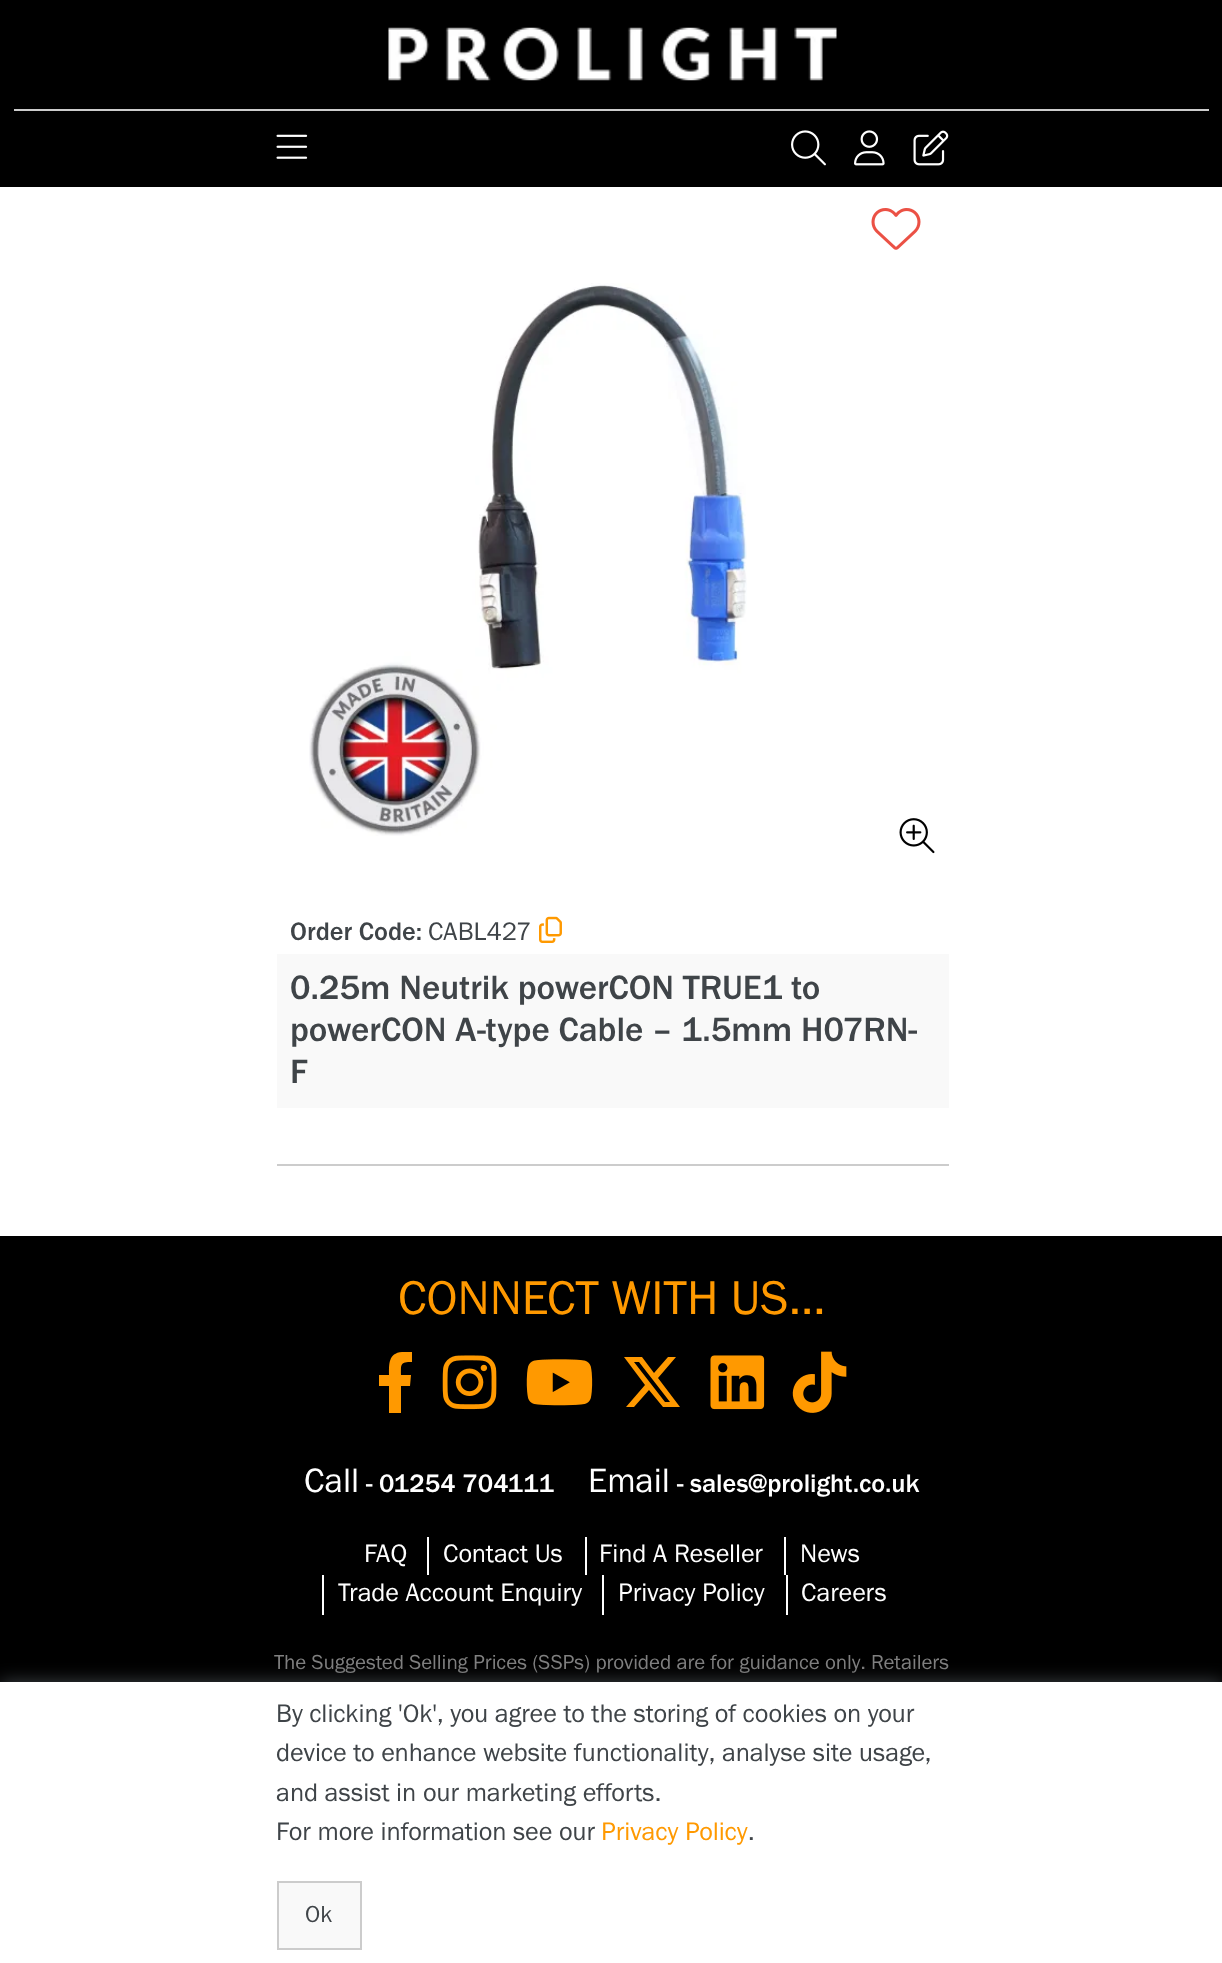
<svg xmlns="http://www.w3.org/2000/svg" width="1222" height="1963">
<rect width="100%" height="100%" fill="#fff"/>
<rect width="1222" height="187" fill="#000"/>
<image x="388" y="27" width="449" height="54" href="media/1.png"/>
<rect x="14" y="109" width="1195" height="2" fill="#ccc"/>
<image x="276" y="134" width="32" height="25" href="media/2.png"/>
<image x="791" y="130" width="35" height="36" href="media/3.png"/>
<image x="854" y="130" width="31" height="36" href="media/4.png"/>
<image x="913" y="130" width="36" height="36" href="media/5.png"/>
<image x="871" y="208" width="50" height="42" href="media/6.png"/>
<image x="309" y="283" width="438" height="553" href="media/7.png"/>
<image x="899" y="818" width="36" height="36" href="media/8.png"/>
<text x="290" y="940" style="font-family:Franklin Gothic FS;font-size:26.25px;font-weight:500;fill:#3f4448">Order Code:</text>
<text x="428" y="940" style="font-family:Franklin Gothic FS;font-size:26.25px;fill:#3f4448">CABL427</text>
<image x="539" y="916" width="23" height="27" href="media/9.png"/>
<rect x="277" y="954" width="672" height="154" fill="#f9f9f9"/>
<text x="290" y="999" style="font-family:Franklin Gothic FS;font-size:35px;font-weight:500;fill:#3f4448">0.25m Neutrik powerCON TRUE1 to</text>
<text x="290" y="1041" style="font-family:Franklin Gothic FS;font-size:35px;font-weight:500;fill:#3f4448">powerCON A-type Cable – 1.5mm H07RN-</text>
<text x="290" y="1083" style="font-family:Franklin Gothic FS;font-size:35px;font-weight:500;fill:#3f4448">F</text>
<rect x="277" y="1164" width="672" height="2" fill="#ccc"/>
<rect y="1236" width="1222" height="446" fill="#000"/>
<text x="398" y="1314" style="font-family:Franklin Gothic FS;font-size:49px;fill:#f90">CONNECT WITH US...</text>
<path d="M410 1386l1-11h-10c0-11-1-13 11-13v-10h-10c-14 1-13 13-13 23h-10v11h10v27h12v-27z" fill="#f90"/>
<image x="442" y="1355" width="55" height="55" href="media/10.png"/>
<image x="526" y="1359" width="67" height="47" href="media/11.png"/>
<path d="M668 1357h8l-18 21l22 29h-17l-14-17l-15 17h-8l19-22l-21-28h18l12 16zm-3 45h5l-31-40h-5z" fill="#f90"/>
<image x="710" y="1355" width="55" height="55" href="media/12.png"/>
<image x="792" y="1351" width="55" height="62" href="media/13.png"/>
<text x="304" y="1492" style="font-family:Franklin Gothic FS;font-size:35px;fill:#fff">Call</text>
<text x="366" y="1492" style="font-family:Franklin Gothic FS;font-size:26.25px;font-weight:500;fill:#fff">- 01254 704111</text>
<text x="588" y="1492" style="font-family:Franklin Gothic FS;font-size:35px;fill:#fff">Email</text>
<text x="677" y="1492" style="font-family:Franklin Gothic FS;font-size:26.25px;font-weight:500;fill:#fff">- sales@prolight.co.uk</text>
<text x="364" y="1562" style="font-family:Franklin Gothic FS;font-size:26.25px;fill:#fff">FAQ</text>
<rect x="427" y="1537" width="2" height="38" fill="#fff"/>
<text x="443" y="1562" style="font-family:Franklin Gothic FS;font-size:26.25px;fill:#fff">Contact Us</text>
<rect x="585" y="1537" width="2" height="38" fill="#fff"/>
<text x="599" y="1562" style="font-family:Franklin Gothic FS;font-size:26.25px;fill:#fff">Find A Reseller</text>
<rect x="784" y="1537" width="2" height="38" fill="#fff"/>
<text x="800" y="1562" style="font-family:Franklin Gothic FS;font-size:26.25px;fill:#fff">News</text>
<rect x="322" y="1575" width="2" height="40" fill="#fff"/>
<text x="338" y="1601" style="font-family:Franklin Gothic FS;font-size:26.25px;fill:#fff">Trade Account Enquiry</text>
<rect x="602" y="1575" width="2" height="40" fill="#fff"/>
<text x="618" y="1601" style="font-family:Franklin Gothic FS;font-size:26.25px;fill:#fff">Privacy Policy</text>
<rect x="786" y="1575" width="2" height="40" fill="#fff"/>
<text x="801" y="1601" style="font-family:Franklin Gothic FS;font-size:26.25px;fill:#fff">Careers</text>
<text x="274" y="1669" style="font-family:Franklin Gothic FS;font-size:21px;fill:#808080">The Suggested Selling Prices (SSPs) provided are for guidance only. Retailers</text>
<rect y="1682" width="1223" height="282" fill="#3f4448" filter="blur(9px)"/>
<rect y="1682" width="1222" height="281" fill="#fff"/>
<text x="276" y="1722" style="font-family:Franklin Gothic FS;font-size:26.25px;fill:#3f4448">By clicking 'Ok', you agree to the storing of cookies on your</text>
<text x="276" y="1761" style="font-family:Franklin Gothic FS;font-size:26.25px;fill:#3f4448">device to enhance website functionality, analyse site usage,</text>
<text x="276" y="1801" style="font-family:Franklin Gothic FS;font-size:26.25px;fill:#3f4448">and assist in our marketing efforts.</text>
<text x="276" y="1840" style="font-family:Franklin Gothic FS;font-size:26.25px;fill:#3f4448">For more information see our</text>
<text x="601" y="1840" style="font-family:Franklin Gothic FS;font-size:26.25px;fill:#f90">Privacy Policy</text>
<text x="748" y="1840" style="font-family:Franklin Gothic FS;font-size:26.25px;fill:#3f4448">.</text>
<rect x="278" y="1882" width="83" height="67" fill="#f9f9f9" stroke="#ccc" stroke-width="2"/>
<text x="305" y="1922" style="font-family:Franklin Gothic FS;font-size:24px;fill:#3f4448">Ok</text>
</svg>
